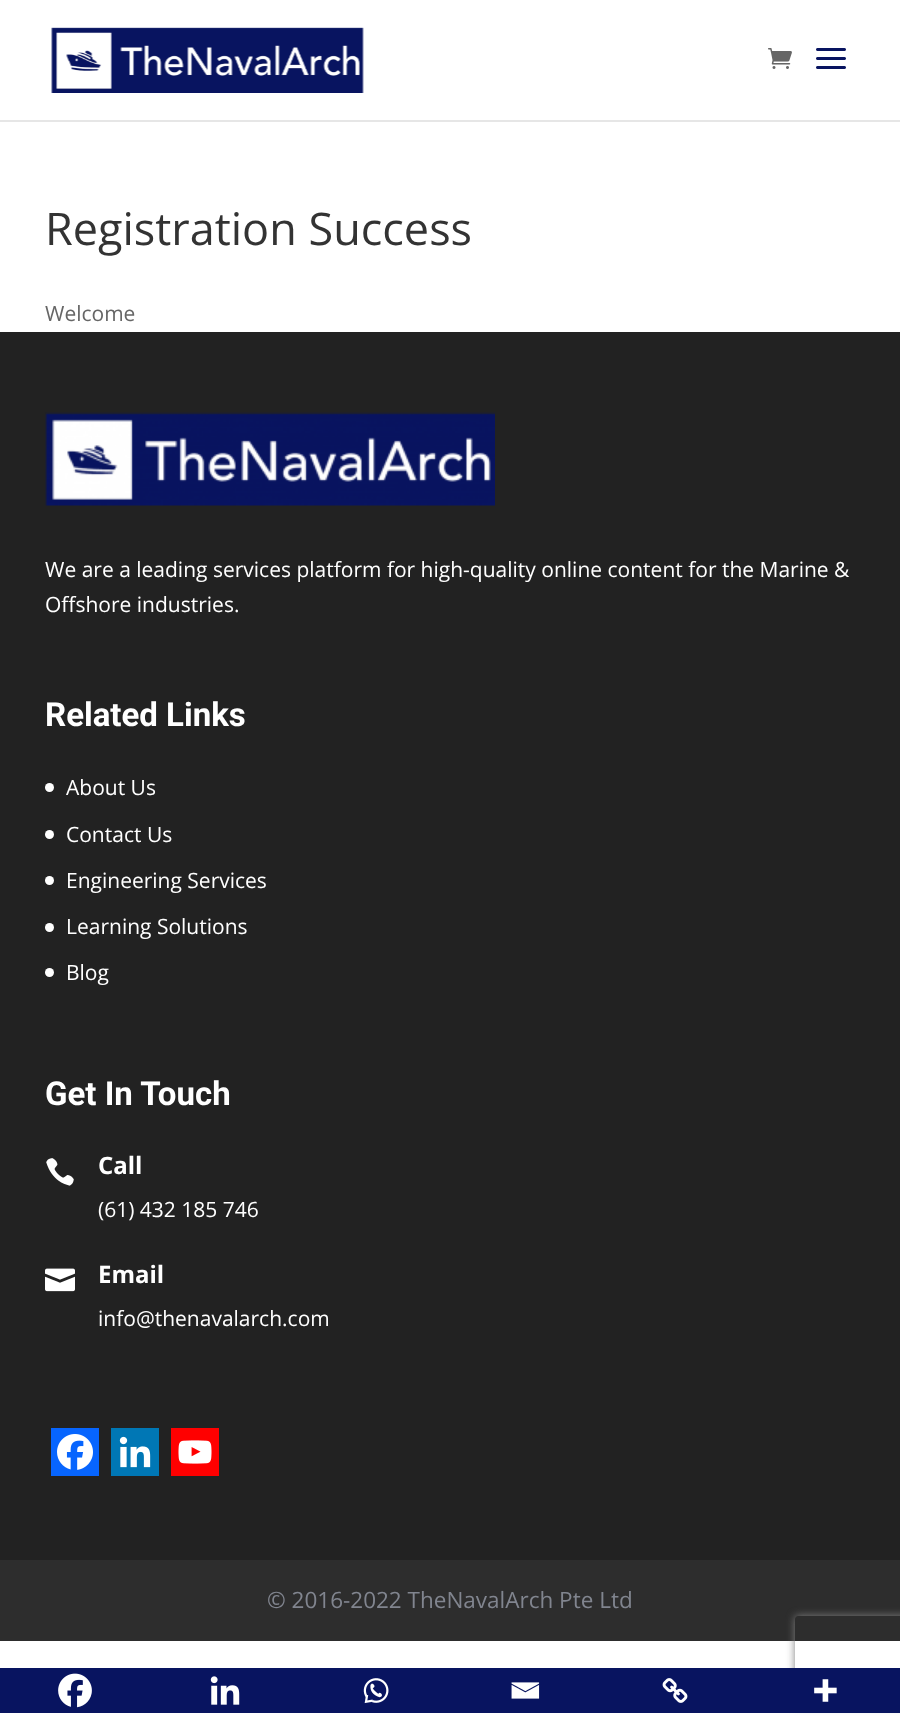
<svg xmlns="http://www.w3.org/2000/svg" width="900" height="1726">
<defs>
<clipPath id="clip1"><path d="M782 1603h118v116h-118zm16 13h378c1.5 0 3 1.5 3 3v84c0 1.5-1.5 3-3 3h-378c-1.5 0-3-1.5-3-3v-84c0-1.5 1.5-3 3-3z" clip-rule="evenodd"/></clipPath>
</defs>
<rect width="100%" height="100%" fill="#fff"/>
<rect y="120" width="900" height="2" fill="#e6e6e6"/>
<image x="51" y="27" width="313" height="66" href="media/1.png"/>
<image x="768" y="48" width="24" height="21" href="media/2.png"/>
<image x="816" y="48" width="30" height="21" href="media/3.png"/>
<text x="45" y="245" style="font-family:Open Sans;font-size:45px;fill:#333">Registration Success</text>
<text x="45" y="321" style="font-family:Open Sans;font-size:21px;fill:#666">Welcome</text>
<rect y="1560" width="900" height="81" fill="#2d2d2d"/>
<g clip-path="url(#clip1)">
<rect x="795" y="1616" width="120" height="90" rx="3" fill="#808080" filter="blur(4px)"/>
</g>
<rect y="1668" width="900" height="45" fill="#081460"/>
<image x="58" y="1673" width="34" height="35" href="media/4.png"/>
<image x="210" y="1676" width="30" height="29" href="media/5.png"/>
<image x="363" y="1678" width="26" height="26" href="media/6.png"/>
<image x="511" y="1682" width="29" height="17" href="media/7.png"/>
<image x="662" y="1678" width="26" height="25" href="media/8.png"/>
<image x="814" y="1679" width="23" height="23" href="media/9.png"/>
<rect y="332" width="900" height="1228" fill="#222"/>
<image x="45" y="412" width="450" height="94" href="media/10.png"/>
<text x="45" y="577" style="font-family:Open Sans;font-size:21px;fill:#fff">We are a leading services platform for high-quality online content for the Marine &amp;</text>
<text x="45" y="612" style="font-family:Open Sans;font-size:21px;fill:#fff">Offshore industries.</text>
<text x="45" y="726" style="font-family:Roboto;font-size:33px;font-weight:bold;fill:#fff">Related Links</text>
<circle cx="49.5" cy="787.5" r="4.5" fill="#fff"/>
<text x="66" y="795" style="font-family:Open Sans;font-size:21px;fill:#fff">About Us</text>
<circle cx="49.5" cy="834.5" r="4.5" fill="#fff"/>
<text x="66" y="842" style="font-family:Open Sans;font-size:21px;fill:#fff">Contact Us</text>
<circle cx="49.5" cy="880.5" r="4.5" fill="#fff"/>
<text x="66" y="888" style="font-family:Open Sans;font-size:21px;fill:#fff">Engineering Services</text>
<circle cx="49.5" cy="927.5" r="4.5" fill="#fff"/>
<text x="66" y="934" style="font-family:Open Sans;font-size:21px;fill:#fff">Learning Solutions</text>
<circle cx="49.5" cy="972.5" r="4.5" fill="#fff"/>
<text x="66" y="980" style="font-family:Open Sans;font-size:21px;fill:#fff">Blog</text>
<text x="45" y="1105" style="font-family:Roboto;font-size:33px;font-weight:bold;fill:#fff">Get In Touch</text>
<image x="46" y="1158" width="28" height="28" href="media/11.png"/>
<text x="98" y="1174" style="font-family:Open Sans;font-size:24px;font-weight:bold;fill:#fff">Call</text>
<text x="98" y="1217" style="font-family:Open Sans;font-size:21px;fill:#fff">(61) 432 185 746</text>
<image x="45" y="1268" width="30" height="24" href="media/12.png"/>
<text x="98" y="1283" style="font-family:Open Sans;font-size:24px;font-weight:bold;fill:#fff">Email</text>
<text x="98" y="1326" style="font-family:Open Sans;font-size:21px;fill:#fff">info@thenavalarch.com</text>
<rect x="51" y="1428" width="48" height="48" fill="#0765fe"/>
<image x="57" y="1434" width="36" height="36" href="media/13.png"/>
<rect x="111" y="1428" width="48" height="48" fill="#0077b5"/>
<image x="119" y="1436" width="32" height="32" href="media/14.png"/>
<rect x="171" y="1428" width="48" height="48" fill="#f00"/>
<image x="178" y="1440" width="34" height="24" href="media/15.png"/>
<text x="267" y="1608" style="font-family:Open Sans;font-size:22.5px;fill:#81858f">© 2016-2022 TheNavalArch Pte Ltd</text>
</svg>
